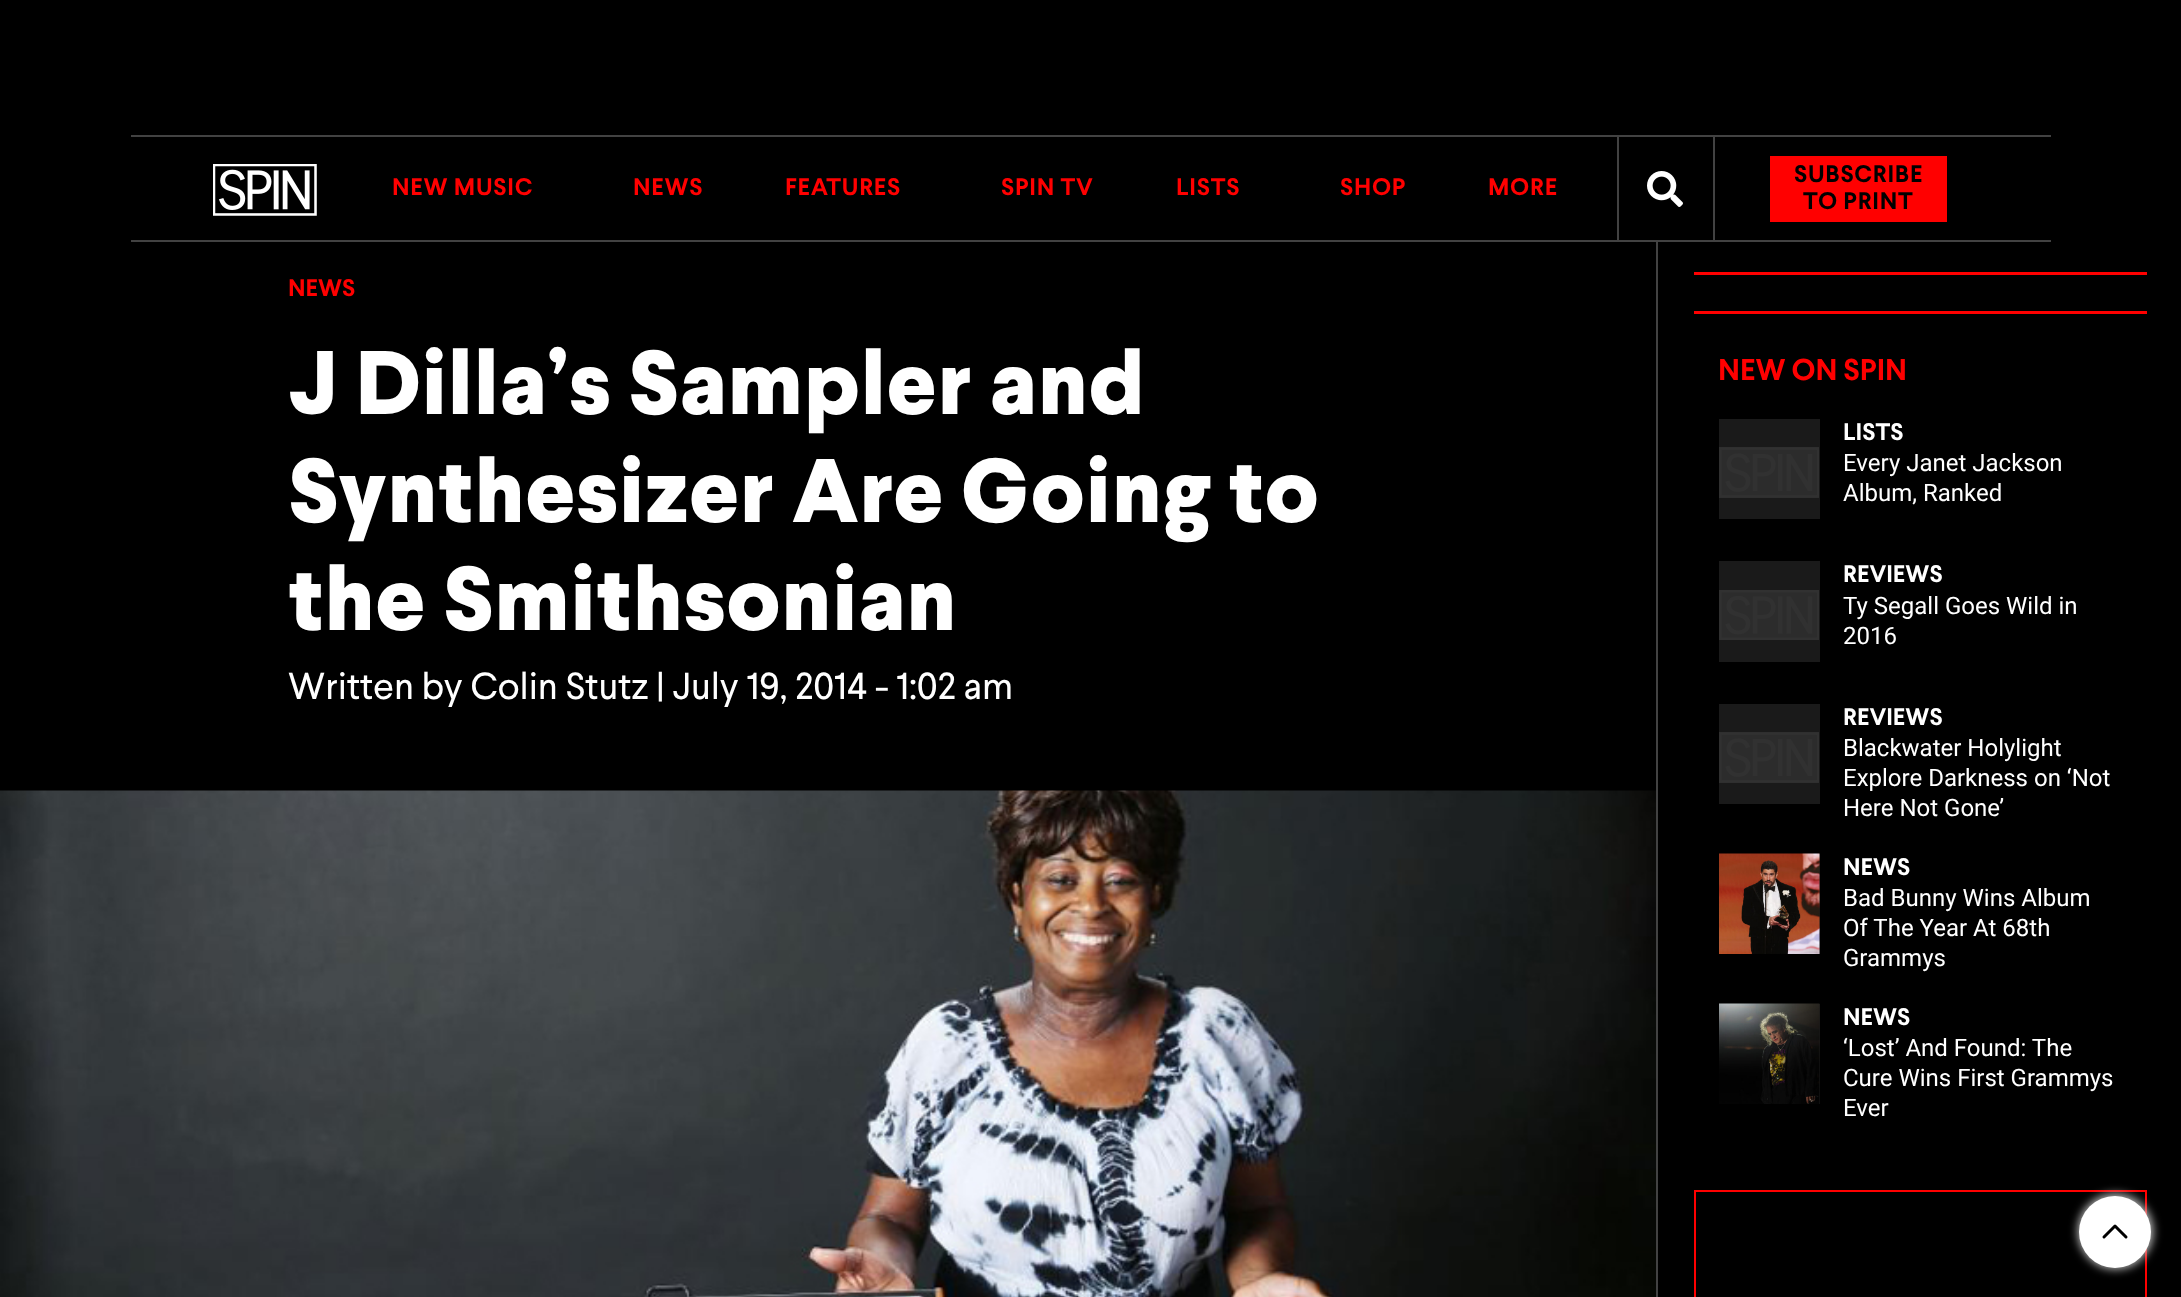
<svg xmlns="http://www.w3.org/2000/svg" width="2181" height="1297">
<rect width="100%" height="100%" fill="#000"/>
<rect x="131" y="135" width="1920" height="2" fill="#424242"/>
<rect x="131" y="240" width="1920" height="2" fill="#424242"/>
<image x="213" y="164" width="104" height="52" href="media/1.png"/>
<rect x="1617" y="137" width="2" height="105" fill="#424242"/>
<text x="392" y="195" style="font-family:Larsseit;font-size:24px;font-weight:bold;letter-spacing:0.75px;fill:#f00">NEW MUSIC</text>
<text x="633" y="195" style="font-family:Larsseit;font-size:24px;font-weight:bold;letter-spacing:0.75px;fill:#f00">NEWS</text>
<text x="785" y="195" style="font-family:Larsseit;font-size:24px;font-weight:bold;letter-spacing:0.75px;fill:#f00">FEATURES</text>
<text x="1001" y="195" style="font-family:Larsseit;font-size:24px;font-weight:bold;letter-spacing:0.75px;fill:#f00">SPIN TV</text>
<text x="1176" y="195" style="font-family:Larsseit;font-size:24px;font-weight:bold;letter-spacing:0.75px;fill:#f00">LISTS</text>
<text x="1340" y="195" style="font-family:Larsseit;font-size:24px;font-weight:bold;letter-spacing:0.75px;fill:#f00">SHOP</text>
<text x="1488" y="195" style="font-family:Larsseit;font-size:24px;font-weight:bold;letter-spacing:0.75px;fill:#f00">MORE</text>
<rect x="1713" y="137" width="2" height="105" fill="#424242"/>
<image x="1647" y="171" width="36" height="36" href="media/2.png"/>
<rect x="1770" y="156" width="177" height="66" fill="#f00"/>
<text x="1794" y="182" style="font-family:Larsseit;font-size:24px;font-weight:bold;letter-spacing:0.75px;fill:#000">SUBSCRIBE</text>
<text x="1803" y="209" style="font-family:Larsseit;font-size:24px;font-weight:bold;letter-spacing:0.75px;fill:#000">TO PRINT</text>
<text x="288" y="296" style="font-family:Larsseit;font-size:24px;font-weight:bold;fill:#f00">NEWS</text>
<text x="288" y="414" style="font-family:Larsseit;font-size:90px;font-weight:800;fill:#fff">J Dilla’s Sampler and</text>
<text x="288" y="522" style="font-family:Larsseit;font-size:90px;font-weight:800;fill:#fff">Synthesizer Are Going to</text>
<text x="288" y="630" style="font-family:Larsseit;font-size:90px;font-weight:800;fill:#fff">the Smithsonian</text>
<text x="288" y="699" style="font-family:Larsseit;font-size:37.5px;fill:#fff">Written by Colin Stutz | July 19, 2014 - 1:02 am</text>
<image x="0" y="790" width="1656" height="507" href="media/3.png"/>
<rect x="1656" y="242" width="2" height="1055" fill="#424242"/>
<rect x="1694" y="272" width="453" height="3" fill="#f00"/>
<rect x="1694" y="311" width="453" height="3" fill="#f00"/>
<text x="1718" y="380" style="font-family:Larsseit;font-size:30px;font-weight:bold;fill:#f00">NEW ON SPIN</text>
<rect x="1719" y="419" width="101" height="100" fill="#1a1a1a"/>
<image x="1719" y="447" width="100" height="51" href="media/4.png"/>
<text x="1843" y="440" style="font-family:Larsseit;font-size:24px;font-weight:bold;fill:#fff">LISTS</text>
<text x="1843" y="471" style="font-family:Roboto;font-size:24px;fill:#fff">Every Janet Jackson</text>
<text x="1843" y="501" style="font-family:Roboto;font-size:24px;fill:#fff">Album, Ranked</text>
<rect x="1719" y="561" width="101" height="101" fill="#1a1a1a"/>
<image x="1719" y="590" width="100" height="50" href="media/5.png"/>
<text x="1843" y="582" style="font-family:Larsseit;font-size:24px;font-weight:bold;fill:#fff">REVIEWS</text>
<text x="1843" y="614" style="font-family:Roboto;font-size:24px;fill:#fff">Ty Segall Goes Wild in</text>
<text x="1843" y="644" style="font-family:Roboto;font-size:24px;fill:#fff">2016</text>
<rect x="1719" y="704" width="101" height="100" fill="#1a1a1a"/>
<image x="1719" y="732" width="100" height="51" href="media/4.png"/>
<text x="1843" y="725" style="font-family:Larsseit;font-size:24px;font-weight:bold;fill:#fff">REVIEWS</text>
<text x="1843" y="756" style="font-family:Roboto;font-size:24px;fill:#fff">Blackwater Holylight</text>
<text x="1843" y="786" style="font-family:Roboto;font-size:24px;fill:#fff">Explore Darkness on ‘Not</text>
<text x="1843" y="816" style="font-family:Roboto;font-size:24px;fill:#fff">Here Not Gone’</text>
<rect x="1819" y="854" width="1" height="100" fill="#1a1a1a"/>
<image x="1719" y="853" width="101" height="101" href="media/6.png"/>
<text x="1843" y="875" style="font-family:Larsseit;font-size:24px;font-weight:bold;fill:#fff">NEWS</text>
<text x="1843" y="906" style="font-family:Roboto;font-size:24px;fill:#fff">Bad Bunny Wins Album</text>
<text x="1843" y="936" style="font-family:Roboto;font-size:24px;fill:#fff">Of The Year At 68th</text>
<text x="1843" y="966" style="font-family:Roboto;font-size:24px;fill:#fff">Grammys</text>
<rect x="1819" y="1004" width="1" height="100" fill="#1a1a1a"/>
<image x="1719" y="1003" width="101" height="101" href="media/7.png"/>
<text x="1843" y="1025" style="font-family:Larsseit;font-size:24px;font-weight:bold;fill:#fff">NEWS</text>
<text x="1843" y="1056" style="font-family:Roboto;font-size:24px;fill:#fff">‘Lost’ And Found: The</text>
<text x="1843" y="1086" style="font-family:Roboto;font-size:24px;fill:#fff">Cure Wins First Grammys</text>
<text x="1843" y="1116" style="font-family:Roboto;font-size:24px;fill:#fff">Ever</text>
<rect x="1695" y="1191" width="451" height="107" fill="none" stroke="#f00" stroke-width="2"/>
<rect x="2078" y="1194" width="75" height="75" rx="37.5" fill="#c7c7c7" filter="blur(5px)"/>
<circle cx="2115" cy="1232" r="36" fill="#fff"/>
<path d="M2104 1237l11-11l11 11" fill="none" stroke="#000" stroke-width="3" stroke-linecap="round" stroke-linejoin="round"/>
</svg>
